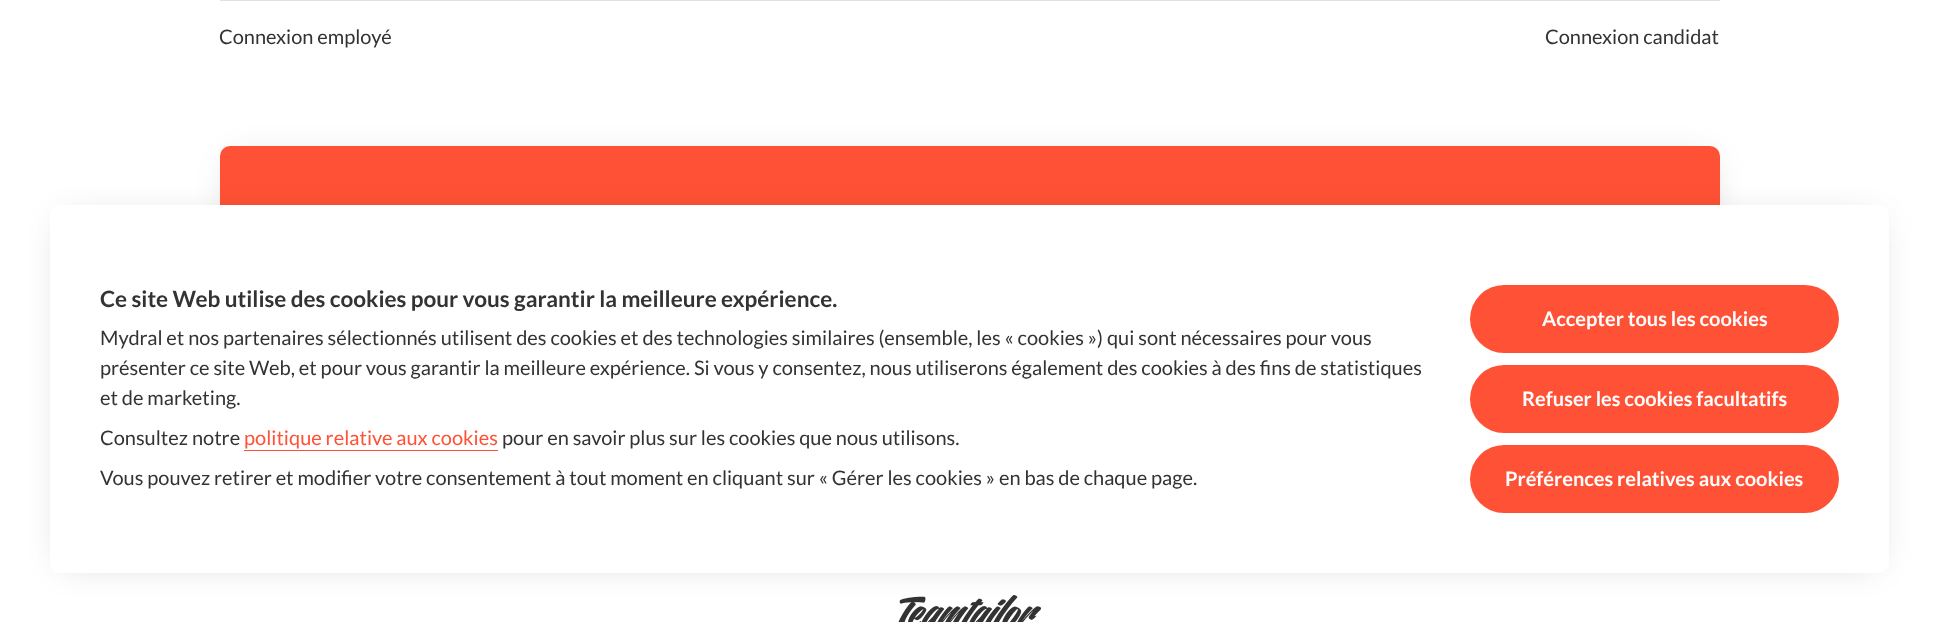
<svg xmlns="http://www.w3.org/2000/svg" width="1938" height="622">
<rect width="100%" height="100%" fill="#fff"/>
<rect x="220" width="1500" height="1" fill="#e0e0e0"/>
<text x="219" y="44" style="font-family:Lato;font-size:20px;fill:#333">Connexion employé</text>
<text x="1545" y="44" style="font-family:Lato;font-size:20px;fill:#333">Connexion candidat</text>
<rect x="233" y="161" width="1475" height="320" fill="#0000002e" filter="blur(17px)"/>
<rect x="220" y="146" width="1500" height="345" rx="10" fill="#ff5135"/>
<image x="898" y="595" width="143" height="27" href="media/1.png"/>
<rect x="63" y="220" width="1813" height="343" fill="#0000002e" filter="blur(17px)"/>
<rect x="50" y="205" width="1839" height="368" rx="10" fill="#fff"/>
<text x="100" y="307" style="font-family:Lato;font-size:22.5px;font-weight:bold;fill:#333">Ce site Web utilise des cookies pour vous garantir la meilleure expérience.</text>
<text x="100" y="345" style="font-family:Lato;font-size:20px;fill:#333">Mydral et nos partenaires sélectionnés utilisent des cookies et des technologies similaires (ensemble, les « cookies ») qui sont nécessaires pour vous</text>
<text x="100" y="375" style="font-family:Lato;font-size:20px;fill:#333">présenter ce site Web, et pour vous garantir la meilleure expérience. Si vous y consentez, nous utiliserons également des cookies à des fins de statistiques</text>
<text x="100" y="405" style="font-family:Lato;font-size:20px;fill:#333">et de marketing.</text>
<text x="100" y="445" style="font-family:Lato;font-size:20px;fill:#333">Consultez notre</text>
<text x="244" y="445" style="font-family:Lato;font-size:20px;fill:#ff5135">politique relative aux cookies</text>
<rect x="244" y="450" width="254" height="1" fill="#ff5135"/>
<text x="502" y="445" style="font-family:Lato;font-size:20px;fill:#333">pour en savoir plus sur les cookies que nous utilisons.</text>
<text x="100" y="485" style="font-family:Lato;font-size:20px;fill:#333">Vous pouvez retirer et modifier votre consentement à tout moment en cliquant sur « Gérer les cookies » en bas de chaque page.</text>
<rect x="1470" y="285" width="369" height="68" rx="34" fill="#ff5135"/>
<text x="1542" y="326" style="font-family:Lato;font-size:20px;font-weight:bold;fill:#fff">Accepter tous les cookies</text>
<rect x="1470" y="365" width="369" height="68" rx="34" fill="#ff5135"/>
<text x="1522" y="406" style="font-family:Lato;font-size:20px;font-weight:bold;fill:#fff">Refuser les cookies facultatifs</text>
<rect x="1470" y="445" width="369" height="68" rx="34" fill="#ff5135"/>
<text x="1505" y="486" style="font-family:Lato;font-size:20px;font-weight:bold;fill:#fff">Préférences relatives aux cookies</text>
</svg>
